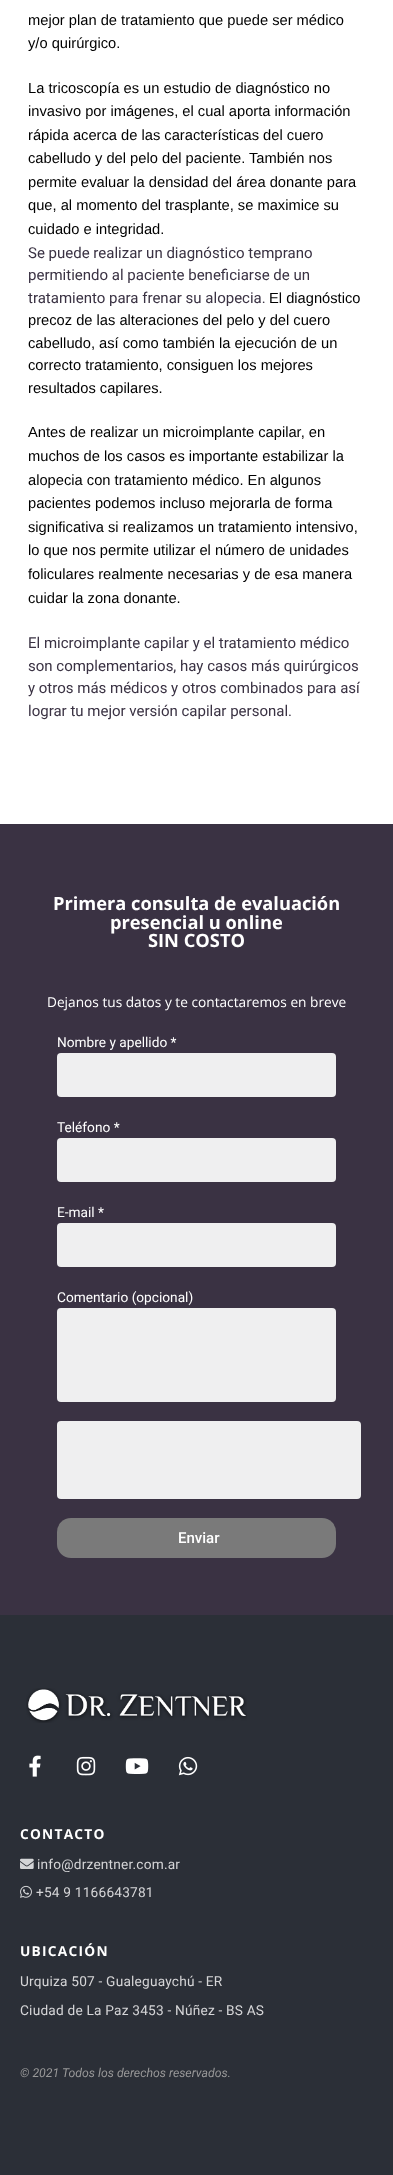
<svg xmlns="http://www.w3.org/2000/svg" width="393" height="2175">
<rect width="100%" height="100%" fill="#fff"/>
<text x="28" y="25" style="font-family:Liberation Sans;font-size:14.7px;fill:#000">mejor plan de tratamiento que puede ser médico</text>
<text x="28" y="48" style="font-family:Liberation Sans;font-size:14.7px;fill:#000">y/o quirúrgico.</text>
<text x="28" y="93" style="font-family:Liberation Sans;font-size:14.7px;fill:#000">La tricoscopía es un estudio de diagnóstico no</text>
<text x="28" y="116" style="font-family:Liberation Sans;font-size:14.7px;fill:#000">invasivo por imágenes, el cual aporta información</text>
<text x="28" y="140" style="font-family:Liberation Sans;font-size:14.7px;fill:#000">rápida acerca de las características del cuero</text>
<text x="28" y="163" style="font-family:Liberation Sans;font-size:14.7px;fill:#000">cabelludo y del pelo del paciente. También nos</text>
<text x="28" y="187" style="font-family:Liberation Sans;font-size:14.7px;fill:#000">permite evaluar la densidad del área donante para</text>
<text x="28" y="210" style="font-family:Liberation Sans;font-size:14.7px;fill:#000">que, al momento del trasplante, se maximice su</text>
<text x="28" y="234" style="font-family:Liberation Sans;font-size:14.7px;fill:#000">cuidado e integridad.</text>
<text x="28" y="258" style="font-family:Roboto;font-size:15px;fill:#3a3243">Se puede realizar un diagnóstico temprano</text>
<text x="28" y="280" style="font-family:Roboto;font-size:15px;fill:#3a3243">permitiendo al paciente beneficiarse de un</text>
<text x="28" y="303" style="font-family:Roboto;font-size:15px;fill:#3a3243">tratamiento para frenar su alopecia.</text>
<text x="269" y="303" style="font-family:Liberation Sans;font-size:14.7px;fill:#000">El diagnóstico</text>
<text x="28" y="325" style="font-family:Liberation Sans;font-size:14.7px;fill:#000">precoz de las alteraciones del pelo y del cuero</text>
<text x="28" y="348" style="font-family:Liberation Sans;font-size:14.7px;fill:#000">cabelludo, así como también la ejecución de un</text>
<text x="28" y="370" style="font-family:Liberation Sans;font-size:14.7px;fill:#000">correcto tratamiento, consiguen los mejores</text>
<text x="28" y="393" style="font-family:Liberation Sans;font-size:14.7px;fill:#000">resultados capilares.</text>
<text x="28" y="437" style="font-family:Liberation Sans;font-size:14.7px;fill:#000">Antes de realizar un microimplante capilar, en</text>
<text x="28" y="461" style="font-family:Liberation Sans;font-size:14.7px;fill:#000">muchos de los casos es importante estabilizar la</text>
<text x="28" y="485" style="font-family:Liberation Sans;font-size:14.7px;fill:#000">alopecia con tratamiento médico. En algunos</text>
<text x="28" y="508" style="font-family:Liberation Sans;font-size:14.7px;fill:#000">pacientes podemos incluso mejorarla de forma</text>
<text x="28" y="532" style="font-family:Liberation Sans;font-size:14.7px;fill:#000">significativa si realizamos un tratamiento intensivo,</text>
<text x="28" y="555" style="font-family:Liberation Sans;font-size:14.7px;fill:#000">lo que nos permite utilizar el número de unidades</text>
<text x="28" y="579" style="font-family:Liberation Sans;font-size:14.7px;fill:#000">foliculares realmente necesarias y de esa manera</text>
<text x="28" y="603" style="font-family:Liberation Sans;font-size:14.7px;fill:#000">cuidar la zona donante.</text>
<text x="28" y="648" style="font-family:Roboto;font-size:15px;fill:#3a3243">El microimplante capilar y el tratamiento médico</text>
<text x="28" y="671" style="font-family:Roboto;font-size:15px;fill:#3a3243">son complementarios, hay casos más quirúrgicos</text>
<text x="28" y="693" style="font-family:Roboto;font-size:15px;fill:#3a3243">y otros más médicos y otros combinados para así</text>
<text x="28" y="716" style="font-family:Roboto;font-size:15px;fill:#3a3243">lograr tu mejor versión capilar personal.</text>
<rect y="824" width="393" height="791" fill="#3a3243"/>
<text x="53" y="910" style="font-family:Open Sans;font-size:18.25px;font-weight:bold;fill:#fff">Primera consulta de evaluación</text>
<text x="110" y="929" style="font-family:Open Sans;font-size:18.25px;font-weight:bold;fill:#fff">presencial u online</text>
<text x="148" y="947" style="font-family:Open Sans;font-size:18.25px;font-weight:bold;fill:#fff">SIN COSTO</text>
<text x="47" y="1007" style="font-family:Open Sans;font-size:13.7px;fill:#fff">Dejanos tus datos y te contactaremos en breve</text>
<text x="57" y="1047" style="font-family:Roboto;font-size:13.7px;fill:#fff">Nombre y apellido *</text>
<rect x="57" y="1053" width="279" height="44" rx="4" fill="#efeff0"/>
<text x="57" y="1132" style="font-family:Roboto;font-size:13.7px;fill:#fff">Teléfono *</text>
<rect x="57" y="1138" width="279" height="44" rx="4" fill="#efeff0"/>
<text x="57" y="1217" style="font-family:Roboto;font-size:13.7px;fill:#fff">E-mail *</text>
<rect x="57" y="1223" width="279" height="44" rx="4" fill="#efeff0"/>
<text x="57" y="1302" style="font-family:Roboto;font-size:13.7px;fill:#fff">Comentario (opcional)</text>
<rect x="57" y="1308" width="279" height="94" rx="4" fill="#efeff0"/>
<rect x="57" y="1421" width="304" height="78" rx="4" fill="#efeff0"/>
<rect x="57" y="1518" width="279" height="40" rx="14" fill="#7a7a7a"/>
<text x="178" y="1543" style="font-family:Roboto;font-size:15px;font-weight:500;fill:#fff">Enviar</text>
<rect y="1615" width="393" height="560" fill="#2b2f37"/>
<image x="26" y="1688" width="221" height="35" href="media/1.png"/>
<image x="29" y="1755" width="12" height="22" href="media/2.png"/>
<image x="76" y="1756" width="20" height="20" href="media/3.png"/>
<image x="125" y="1758" width="24" height="16" href="media/4.png"/>
<image x="178" y="1756" width="20" height="20" href="media/5.png"/>
<text x="20" y="1839" style="font-family:Open Sans;font-size:13.7px;font-weight:bold;letter-spacing:1.25px;fill:#fff">CONTACTO</text>
<image x="20" y="1858" width="14" height="11" href="media/6.png"/>
<text x="37" y="1869" style="font-family:Roboto;font-size:13.7px;letter-spacing:0.2px;fill:#d5d5d7">info@drzentner.com.ar</text>
<image x="20" y="1885" width="12" height="13" href="media/7.png"/>
<text x="36" y="1897" style="font-family:Roboto;font-size:13.7px;letter-spacing:0.2px;fill:#d5d5d7">+54 9 1166643781</text>
<text x="20" y="1956" style="font-family:Open Sans;font-size:13.7px;font-weight:bold;letter-spacing:1.25px;fill:#fff">UBICACIÓN</text>
<text x="20" y="1986" style="font-family:Roboto;font-size:13.7px;letter-spacing:0.2px;fill:#d5d5d7">Urquiza 507 - Gualeguaychú - ER</text>
<text x="20" y="2015" style="font-family:Roboto;font-size:13.7px;letter-spacing:0.2px;fill:#d5d5d7">Ciudad de La Paz 3453 - Núñez - BS AS</text>
<text x="20" y="2077" style="font-family:Roboto;font-size:12.3px;font-style:italic;fill:#999">© 2021 Todos los derechos reservados.</text>
</svg>
